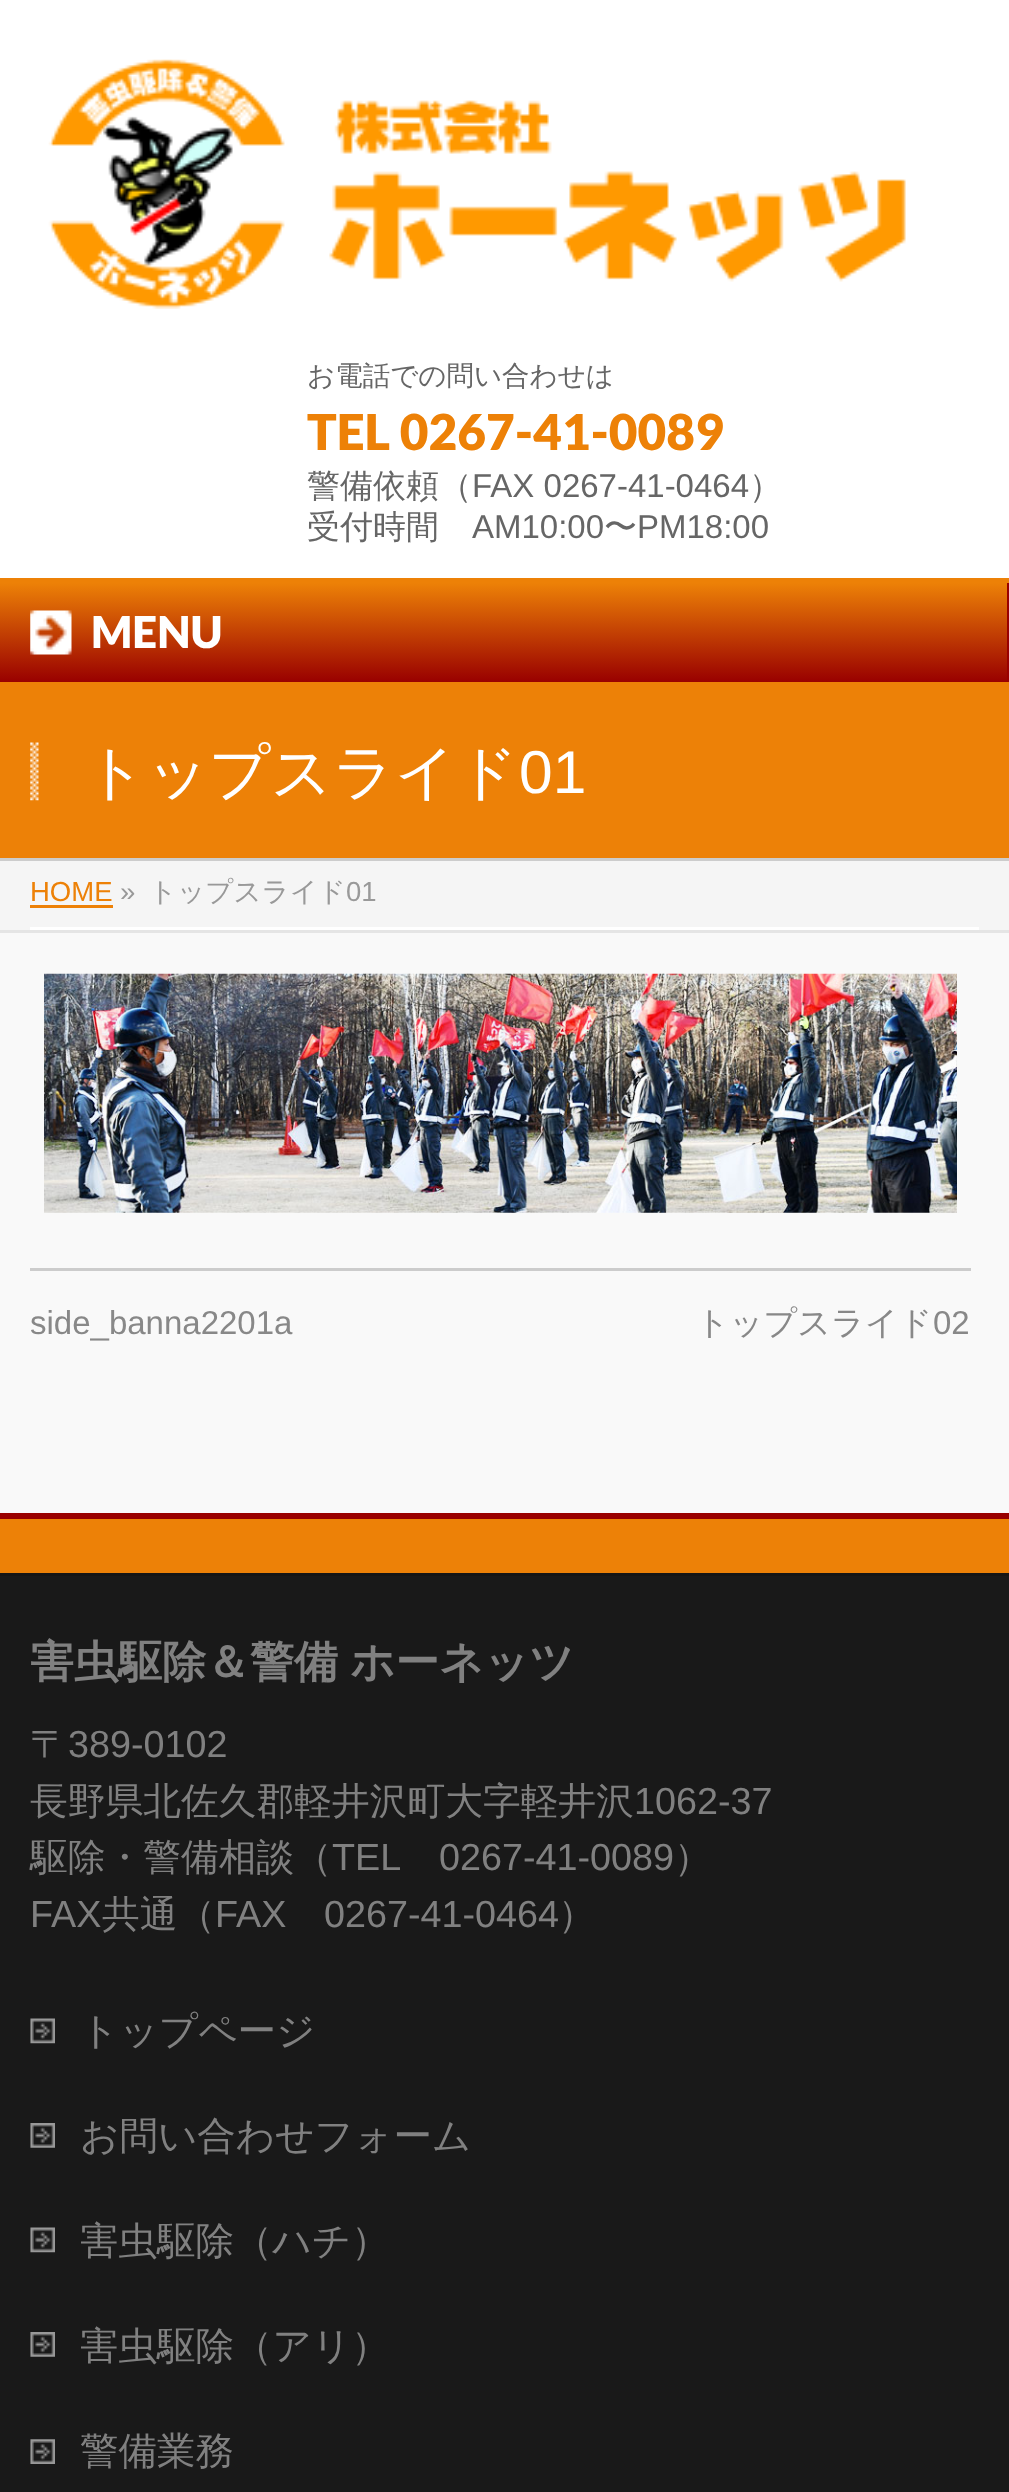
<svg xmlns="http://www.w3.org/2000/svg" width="1009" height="2492">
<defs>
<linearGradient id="g1" gradientUnits="userSpaceOnUse" x1="503" y1="583" x2="503" y2="682"><stop offset="0" stop-color="#ed8107"/><stop offset="1" stop-color="#900"/></linearGradient>
</defs>
<rect width="100%" height="100%" fill="#f9f9f9"/>
<rect width="1009" height="578" fill="#fff"/>
<image x="48" y="59" width="858" height="250" href="media/1.png"/>
<text x="307" y="385" style="font-family:WenQuanYi Zen Hei;font-size:27.5px;font-weight:500;fill:#666">お電話での問い合わせは</text>
<text x="307" y="450" style="font-family:Lato;font-size:49.5px;font-weight:900;fill:#ed8107">TEL 0267-41-0089</text>
<text x="307" y="497" style="font-family:WenQuanYi Zen Hei;font-size:33px;font-weight:500;fill:#666">警備依頼（</text>
<text x="472" y="497" style="font-family:Liberation Sans;font-size:33px;fill:#666">FAX 0267-41-0464</text>
<text x="749" y="497" style="font-family:WenQuanYi Zen Hei;font-size:33px;font-weight:500;fill:#666">）</text>
<text x="307" y="538" style="font-family:WenQuanYi Zen Hei;font-size:33px;font-weight:500;fill:#666">受付時間</text>
<text x="472" y="538" style="font-family:Liberation Sans;font-size:33px;fill:#666">AM10:00</text>
<text x="604" y="538" style="font-family:WenQuanYi Zen Hei;font-size:33px;font-weight:500;fill:#666">〜</text>
<text x="637" y="538" style="font-family:Liberation Sans;font-size:33px;fill:#666">PM18:00</text>
<rect y="578" width="1009" height="5" fill="#ed8107"/>
<rect y="583" width="1007" height="99" fill="url(#g1)"/>
<rect x="1007" y="583" width="2" height="99" fill="#900"/>
<image x="30" y="610" width="42" height="45" href="media/2.png"/>
<text x="91" y="648" style="font-family:Lato;font-size:44px;font-weight:900;fill:#fff">MENU</text>
<rect y="682" width="1009" height="176" fill="#ed8107"/>
<rect y="858" width="1009" height="3" fill="#ccc"/>
<image x="30" y="742" width="9" height="59" href="media/3.png"/>
<text x="85" y="793" style="font-family:WenQuanYi Zen Hei;font-size:60.5px;font-weight:500;fill:#fff">トップスライド</text>
<text x="519" y="793" style="font-family:Liberation Sans;font-size:60.5px;fill:#fff">01</text>
<rect y="861" width="1009" height="69" fill="#f5f5f5"/>
<rect y="930" width="1009" height="3" fill="#e5e5e5"/>
<rect x="30" y="927" width="949" height="3" fill="#fff"/>
<text x="30" y="901" style="font-family:Liberation Sans;font-size:27.5px;fill:#ed8107">HOME</text>
<rect x="30" y="905" width="83" height="3" fill="#ed8107"/>
<text x="120" y="901" style="font-family:Liberation Sans;font-size:27.5px;fill:#999">»</text>
<text x="149" y="901" style="font-family:WenQuanYi Zen Hei;font-size:27.5px;font-weight:500;fill:#999">トップスライド</text>
<text x="346" y="901" style="font-family:Liberation Sans;font-size:27.5px;fill:#999">01</text>
<image x="44" y="973" width="913" height="240" href="media/4.png"/>
<rect x="30" y="1268" width="941" height="3" fill="#ccc"/>
<text x="30" y="1334" style="font-family:Liberation Sans;font-size:33px;fill:#888">side_banna2201a</text>
<text x="696" y="1334" style="font-family:WenQuanYi Zen Hei;font-size:33px;font-weight:500;fill:#888">トップスライド</text>
<text x="933" y="1334" style="font-family:Liberation Sans;font-size:33px;fill:#888">02</text>
<rect y="1519" width="1009" height="54" fill="#ed8107"/>
<rect y="1513" width="1009" height="6" fill="#900"/>
<rect y="1576" width="1009" height="916" fill="#191919"/>
<rect y="1573" width="1009" height="3" fill="#151515"/>
<text x="30" y="1677" word-spacing="-1" style="font-family:WenQuanYi Zen Hei;font-size:44px;font-weight:bold;fill:#808080">害虫駆除＆警備 ホーネッツ</text>
<text x="30" y="1757" style="font-family:WenQuanYi Zen Hei;font-size:37.75px;font-weight:500;fill:#808080">〒</text>
<text x="68" y="1757" style="font-family:Liberation Sans;font-size:37.75px;fill:#808080">389-0102</text>
<text x="30" y="1814" style="font-family:WenQuanYi Zen Hei;font-size:37.75px;font-weight:500;fill:#808080">長野県北佐久郡軽井沢町大字軽井沢</text>
<text x="634" y="1814" style="font-family:Liberation Sans;font-size:37.75px;fill:#808080">1062-37</text>
<text x="30" y="1870" style="font-family:WenQuanYi Zen Hei;font-size:37.75px;font-weight:500;fill:#808080">駆除・警備相談（</text>
<text x="332" y="1870" style="font-family:Liberation Sans;font-size:37.75px;fill:#808080">TEL</text>
<text x="439" y="1870" style="font-family:Liberation Sans;font-size:37.75px;fill:#808080">0267-41-0089</text>
<text x="674" y="1870" style="font-family:WenQuanYi Zen Hei;font-size:37.75px;font-weight:500;fill:#808080">）</text>
<text x="30" y="1927" style="font-family:Liberation Sans;font-size:37.75px;fill:#808080">FAX</text>
<text x="102" y="1927" style="font-family:WenQuanYi Zen Hei;font-size:37.75px;font-weight:500;fill:#808080">共通（</text>
<text x="215" y="1927" style="font-family:Liberation Sans;font-size:37.75px;fill:#808080">FAX</text>
<text x="324" y="1927" style="font-family:Liberation Sans;font-size:37.75px;fill:#808080">0267-41-0464</text>
<text x="558" y="1927" style="font-family:WenQuanYi Zen Hei;font-size:37.75px;font-weight:500;fill:#808080">）</text>
<image x="30" y="2018" width="25" height="26" href="media/5.png"/>
<text x="80" y="2044" style="font-family:WenQuanYi Zen Hei;font-size:38.5px;font-weight:500;fill:#808080">トップページ</text>
<image x="30" y="2123" width="25" height="25" href="media/6.png"/>
<text x="80" y="2149" style="font-family:WenQuanYi Zen Hei;font-size:38.5px;font-weight:500;fill:#808080">お問い合わせフォーム</text>
<image x="30" y="2227" width="25" height="26" href="media/5.png"/>
<text x="80" y="2254" style="font-family:WenQuanYi Zen Hei;font-size:38.5px;font-weight:500;fill:#808080">害虫駆除（ハチ）</text>
<image x="30" y="2332" width="25" height="25" href="media/6.png"/>
<text x="80" y="2359" style="font-family:WenQuanYi Zen Hei;font-size:38.5px;font-weight:500;fill:#808080">害虫駆除（アリ）</text>
<image x="30" y="2439" width="25" height="25" href="media/7.png"/>
<text x="80" y="2464" style="font-family:WenQuanYi Zen Hei;font-size:38.5px;font-weight:500;fill:#808080">警備業務</text>
</svg>
